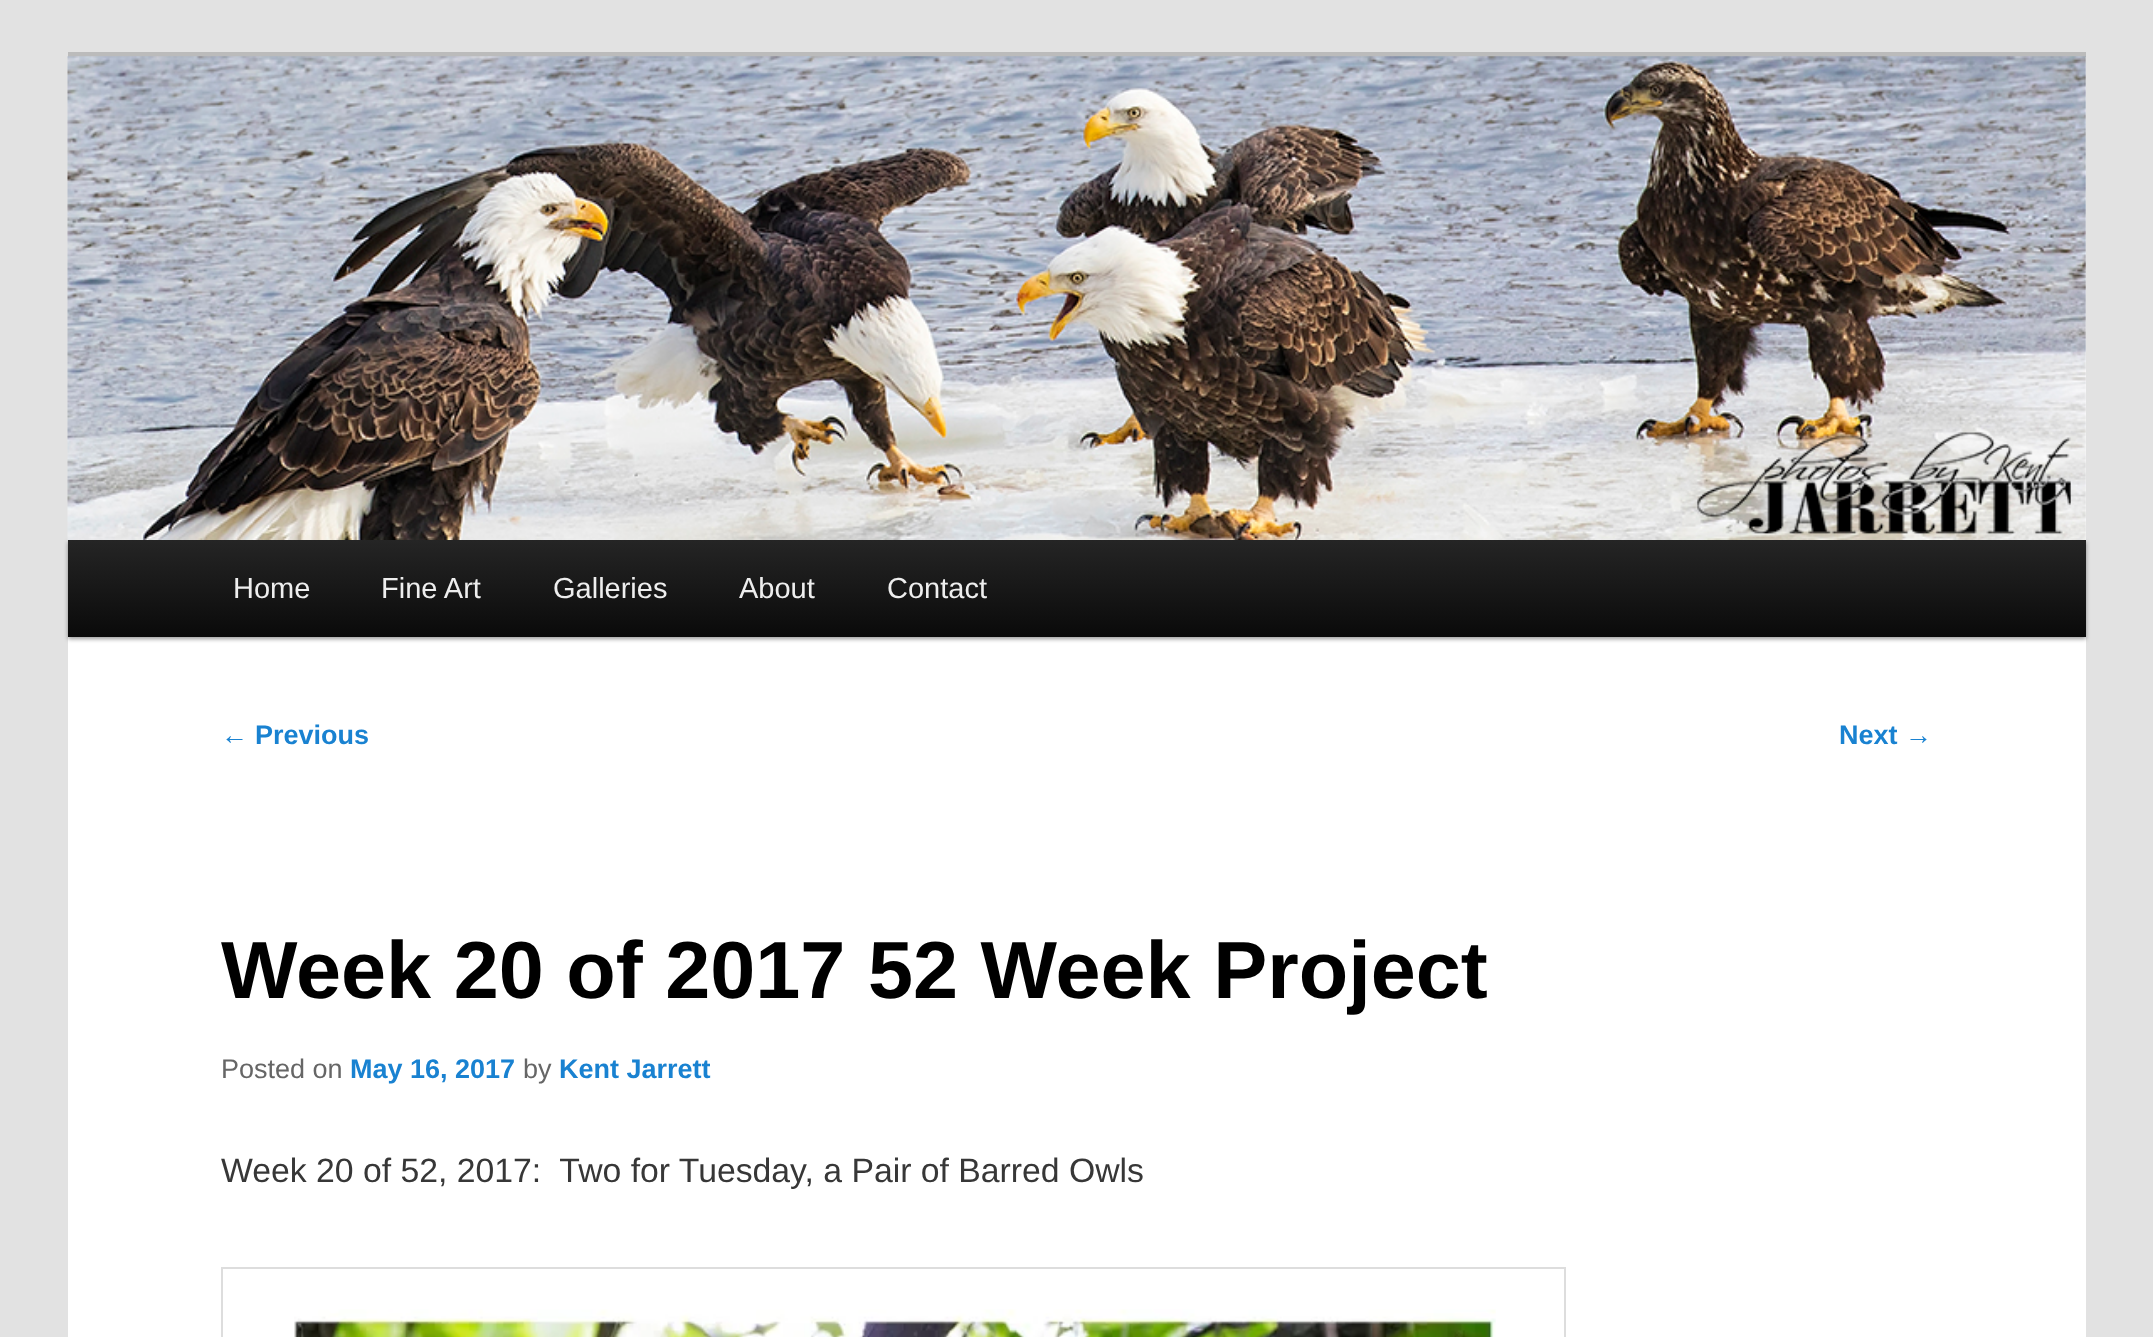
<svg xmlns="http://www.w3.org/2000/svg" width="2153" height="1337">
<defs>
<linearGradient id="g1" gradientUnits="userSpaceOnUse" x1="1077" y1="540" x2="1077" y2="637"><stop offset="0" stop-color="#252525"/><stop offset="1" stop-color="#0a0a0a"/></linearGradient>
</defs>
<rect width="100%" height="100%" fill="#e2e2e2"/>
<rect x="68" y="57" width="2018" height="1280" fill="#fff"/>
<rect x="68" y="52" width="2018" height="5" fill="#bbb"/>
<rect x="68" y="542" width="2018" height="97" fill="#00000066" filter="blur(2px)"/>
<image x="67" y="56" width="2019" height="484" href="media/1.png"/>
<rect x="68" y="540" width="2018" height="97" fill="url(#g1)"/>
<text x="233" y="598" style="font-family:Liberation Sans;font-size:29px;fill:#eee">Home</text>
<text x="381" y="598" style="font-family:Liberation Sans;font-size:29px;fill:#eee">Fine Art</text>
<text x="553" y="598" style="font-family:Liberation Sans;font-size:29px;fill:#eee">Galleries</text>
<text x="739" y="598" style="font-family:Liberation Sans;font-size:29px;fill:#eee">About</text>
<text x="887" y="598" style="font-family:Liberation Sans;font-size:29px;fill:#eee">Contact</text>
<text x="221" y="744" style="font-family:Liberation Sans;font-size:27px;fill:#1982d1">←</text>
<text x="255" y="744" style="font-family:Liberation Sans;font-size:27px;font-weight:bold;fill:#1982d1">Previous</text>
<text x="1839" y="744" style="font-family:Liberation Sans;font-size:27px;font-weight:bold;fill:#1982d1">Next</text>
<text x="1905" y="744" style="font-family:Liberation Sans;font-size:27px;fill:#1982d1">→</text>
<text x="221" y="998" style="font-family:Liberation Sans;font-size:81px;font-weight:bold;fill:#000">Week 20 of 2017 52 Week Project</text>
<text x="221" y="1078" style="font-family:Liberation Sans;font-size:27px;fill:#666">Posted on</text>
<text x="350" y="1078" style="font-family:Liberation Sans;font-size:27px;font-weight:bold;fill:#1982d1">May 16, 2017</text>
<text x="523" y="1078" style="font-family:Liberation Sans;font-size:27px;fill:#666">by</text>
<text x="559" y="1078" style="font-family:Liberation Sans;font-size:27px;font-weight:bold;fill:#1982d1">Kent Jarrett</text>
<text x="221" y="1182" style="font-family:Liberation Sans;font-size:33.75px;fill:#373737" xml:space="preserve">Week 20 of 52, 2017:  Two for Tuesday, a Pair of Barred Owls</text>
<rect x="222" y="1268" width="1343" height="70" fill="none" stroke="#ddd" stroke-width="2"/>
<image x="294" y="1309" width="1202" height="28" href="media/2.png"/>
</svg>
